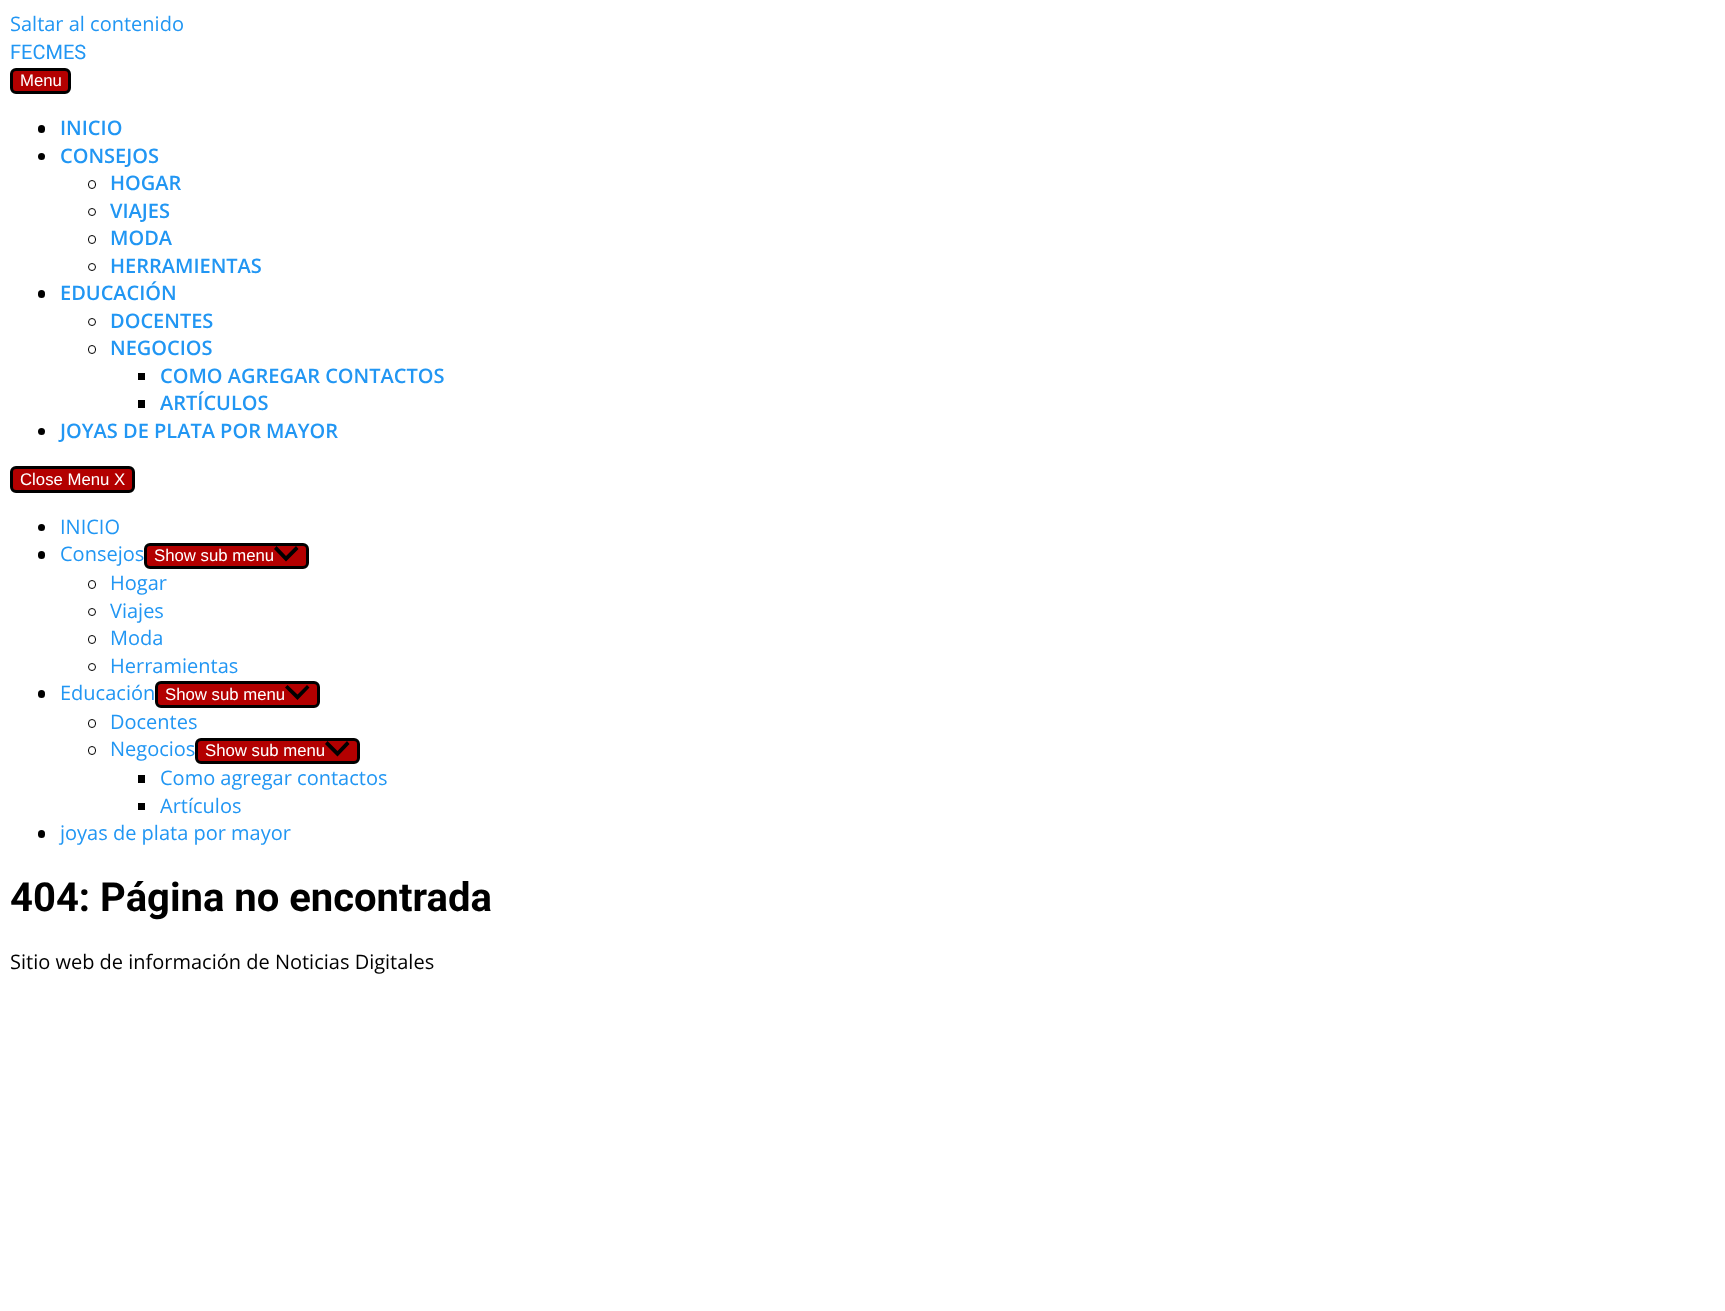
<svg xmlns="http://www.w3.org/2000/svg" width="1725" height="1311">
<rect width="100%" height="100%" fill="#fff"/>
<text x="10" y="31" style="font-family:Open Sans;font-size:20px;fill:#2196f3">Saltar al contenido</text>
<text x="10" y="59" style="font-family:Roboto;font-size:20px;fill:#2196f3">FECMES</text>
<rect x="11.5" y="69.5" width="58" height="23" rx="4.5" fill="#b30000" stroke="#000" stroke-width="3"/>
<text x="20" y="86" style="font-family:Liberation Sans;font-size:16.75px;fill:#fff">Menu</text>
<rect x="38" y="125" width="7" height="8" rx="3.5" fill="#000"/>
<text x="60" y="135" style="font-family:Open Sans;font-size:20px;font-weight:600;fill:#2196f3">INICIO</text>
<circle cx="41.5" cy="156.5" r="3.5" fill="#000"/>
<text x="60" y="163" style="font-family:Open Sans;font-size:20px;font-weight:600;fill:#2196f3">CONSEJOS</text>
<rect x="88.5" y="180.5" width="7" height="8" rx="3.5" fill="none" stroke="#000"/>
<text x="110" y="190" style="font-family:Open Sans;font-size:20px;font-weight:600;fill:#2196f3">HOGAR</text>
<circle cx="92" cy="212" r="3.5" fill="none" stroke="#000"/>
<text x="110" y="218" style="font-family:Open Sans;font-size:20px;font-weight:600;fill:#2196f3">VIAJES</text>
<rect x="88.5" y="235.5" width="7" height="8" rx="3.5" fill="none" stroke="#000"/>
<text x="110" y="245" style="font-family:Open Sans;font-size:20px;font-weight:600;fill:#2196f3">MODA</text>
<circle cx="92" cy="267" r="3.5" fill="none" stroke="#000"/>
<text x="110" y="273" style="font-family:Open Sans;font-size:20px;font-weight:600;fill:#2196f3">HERRAMIENTAS</text>
<rect x="38" y="290" width="7" height="8" rx="3.5" fill="#000"/>
<text x="60" y="300" style="font-family:Open Sans;font-size:20px;font-weight:600;fill:#2196f3">EDUCACIÓN</text>
<circle cx="92" cy="322" r="3.5" fill="none" stroke="#000"/>
<text x="110" y="328" style="font-family:Open Sans;font-size:20px;font-weight:600;fill:#2196f3">DOCENTES</text>
<rect x="88.5" y="345.5" width="7" height="8" rx="3.5" fill="none" stroke="#000"/>
<text x="110" y="355" style="font-family:Open Sans;font-size:20px;font-weight:600;fill:#2196f3">NEGOCIOS</text>
<rect x="138" y="373" width="7" height="7" fill="#000"/>
<text x="160" y="383" style="font-family:Open Sans;font-size:20px;font-weight:600;fill:#2196f3">COMO AGREGAR CONTACTOS</text>
<rect x="138" y="400" width="7" height="8" fill="#000"/>
<text x="160" y="410" style="font-family:Open Sans;font-size:20px;font-weight:600;fill:#2196f3">ARTÍCULOS</text>
<circle cx="41.5" cy="431.5" r="3.5" fill="#000"/>
<text x="60" y="438" style="font-family:Open Sans;font-size:20px;font-weight:600;fill:#2196f3">JOYAS DE PLATA POR MAYOR</text>
<rect x="11.5" y="467.5" width="122" height="24" rx="4.5" fill="#b30000" stroke="#000" stroke-width="3"/>
<text x="20" y="485" style="font-family:Liberation Sans;font-size:16.75px;fill:#fff">Close Menu X</text>
<circle cx="41.5" cy="527.5" r="3.5" fill="#000"/>
<text x="60" y="534" style="font-family:Open Sans;font-size:20px;fill:#2196f3">INICIO</text>
<rect x="38" y="551" width="7" height="8" rx="3.5" fill="#000"/>
<text x="60" y="561" style="font-family:Open Sans;font-size:20px;fill:#2196f3">Consejos</text>
<rect x="145.5" y="544.5" width="162" height="23" rx="4.5" fill="#b30000" stroke="#000" stroke-width="3"/>
<text x="154" y="561" style="font-family:Liberation Sans;font-size:16.75px;fill:#fff">Show sub menu</text>
<path d="M286 556l10-10l2.5 3l-12.5 12.5l-12-12.5l2.5-3z" fill="#000" fill-rule="evenodd"/>
<rect x="88.5" y="580.5" width="7" height="8" rx="3.5" fill="none" stroke="#000"/>
<text x="110" y="590" style="font-family:Open Sans;font-size:20px;fill:#2196f3">Hogar</text>
<circle cx="92" cy="612" r="3.5" fill="none" stroke="#000"/>
<text x="110" y="618" style="font-family:Open Sans;font-size:20px;fill:#2196f3">Viajes</text>
<rect x="88.5" y="635.5" width="7" height="8" rx="3.5" fill="none" stroke="#000"/>
<text x="110" y="645" style="font-family:Open Sans;font-size:20px;fill:#2196f3">Moda</text>
<circle cx="92" cy="667" r="3.5" fill="none" stroke="#000"/>
<text x="110" y="673" style="font-family:Open Sans;font-size:20px;fill:#2196f3">Herramientas</text>
<rect x="38" y="690" width="7" height="8" rx="3.5" fill="#000"/>
<text x="60" y="700" style="font-family:Open Sans;font-size:20px;fill:#2196f3">Educación</text>
<rect x="156.5" y="682.5" width="162" height="24" rx="4.5" fill="#b30000" stroke="#000" stroke-width="3"/>
<text x="165" y="700" style="font-family:Liberation Sans;font-size:16.75px;fill:#fff">Show sub menu</text>
<path d="M297.5 694.5l9.5-9.5l2.5 2.5l-12 12.5l-12.5-12.5l2.5-2.5z" fill="#000" fill-rule="evenodd"/>
<rect x="88.5" y="719.5" width="7" height="8" rx="3.5" fill="none" stroke="#000"/>
<text x="110" y="729" style="font-family:Open Sans;font-size:20px;fill:#2196f3">Docentes</text>
<rect x="88.5" y="746.5" width="7" height="8" rx="3.5" fill="none" stroke="#000"/>
<text x="110" y="756" style="font-family:Open Sans;font-size:20px;fill:#2196f3">Negocios</text>
<rect x="196.5" y="739.5" width="162" height="23" rx="4.5" fill="#b30000" stroke="#000" stroke-width="3"/>
<text x="205" y="756" style="font-family:Liberation Sans;font-size:16.75px;fill:#fff">Show sub menu</text>
<path d="M337.5 751l9.5-10l2.5 3l-12 12.5l-12.5-12.5l2.5-3z" fill="#000" fill-rule="evenodd"/>
<rect x="138" y="775" width="7" height="8" fill="#000"/>
<text x="160" y="785" style="font-family:Open Sans;font-size:20px;fill:#2196f3">Como agregar contactos</text>
<rect x="138" y="803" width="7" height="7" fill="#000"/>
<text x="160" y="813" style="font-family:Open Sans;font-size:20px;fill:#2196f3">Artículos</text>
<rect x="38" y="830" width="7" height="8" rx="3.5" fill="#000"/>
<text x="60" y="840" style="font-family:Open Sans;font-size:20px;fill:#2196f3">joyas de plata por mayor</text>
<text x="10" y="911" style="font-family:Roboto;font-size:40px;font-weight:bold;fill:#000">404: Página no encontrada</text>
<text x="10" y="969" style="font-family:Open Sans;font-size:20px;fill:#000">Sitio web de información de Noticias Digitales</text>
</svg>
